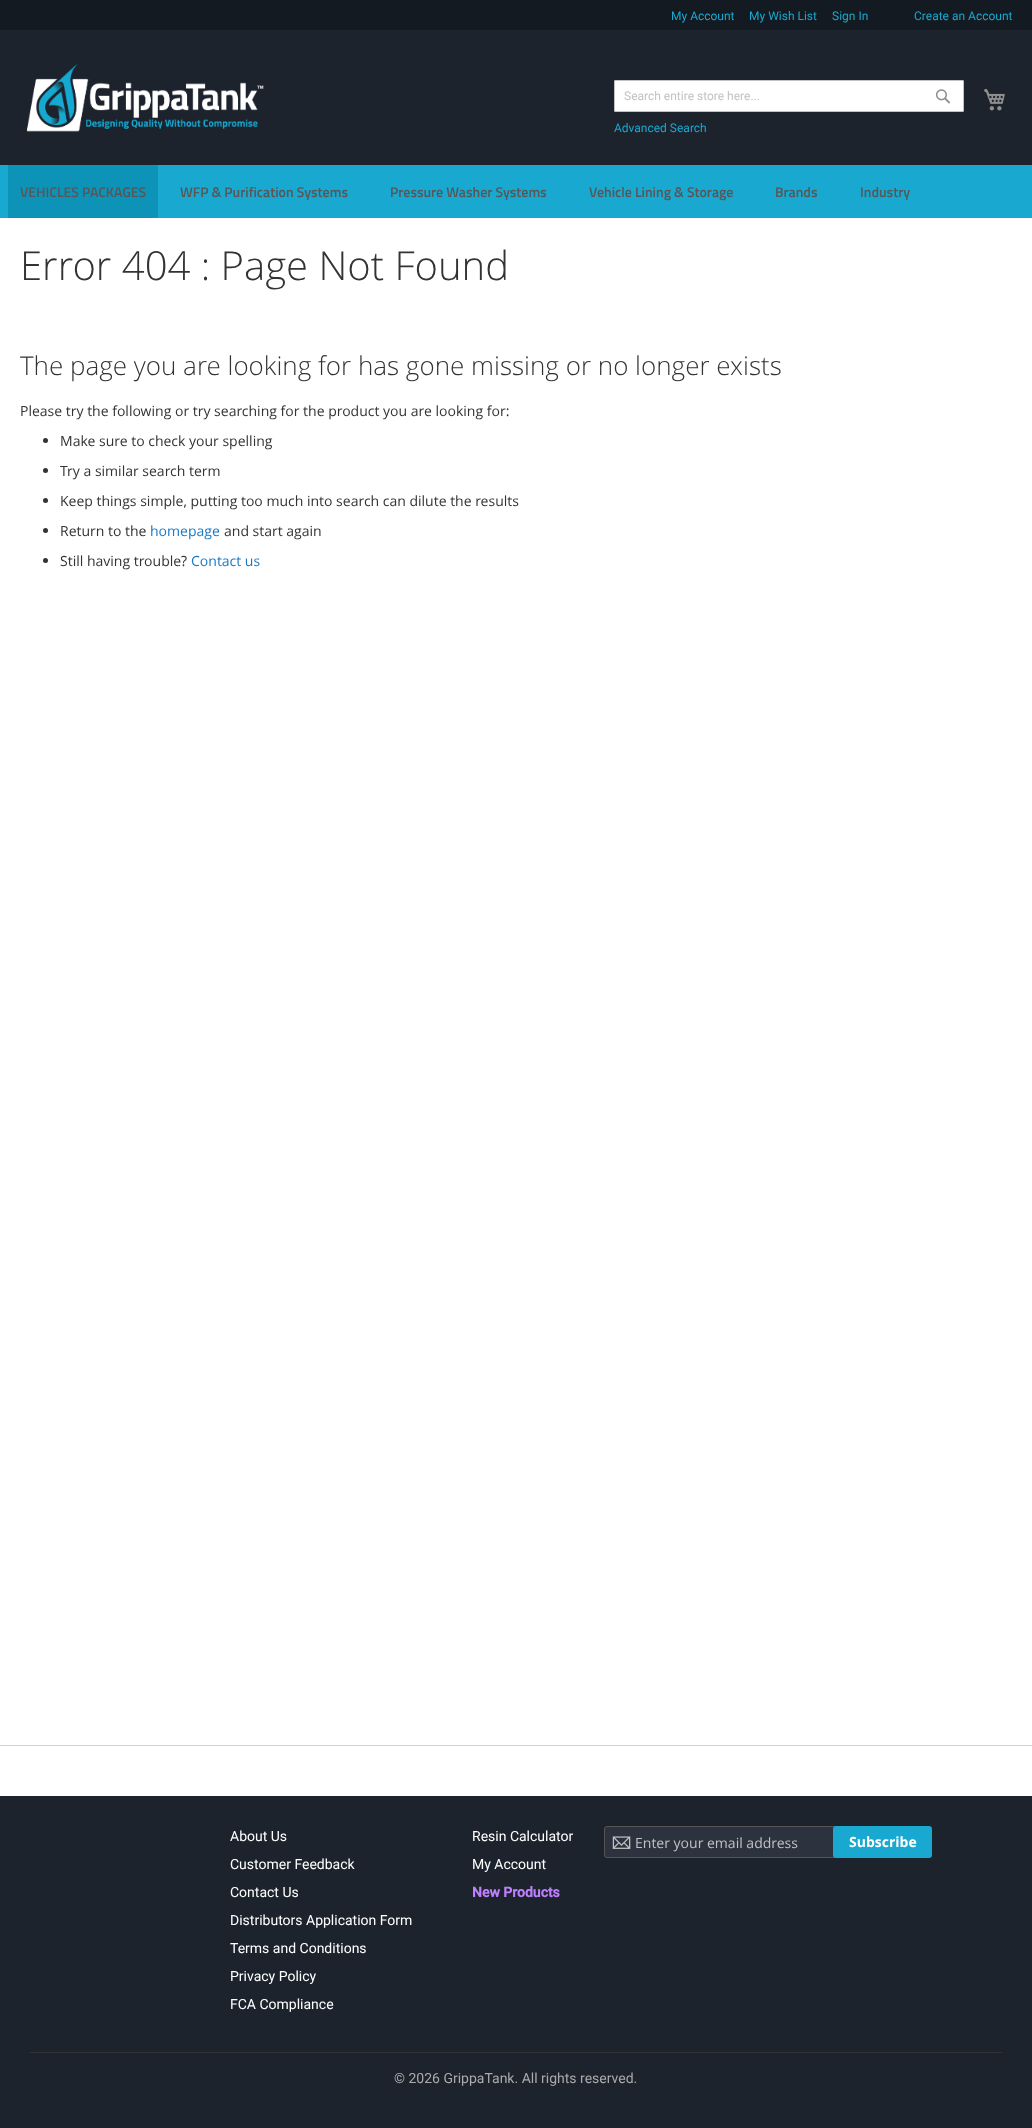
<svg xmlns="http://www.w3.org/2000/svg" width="1032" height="2128">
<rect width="100%" height="100%" fill="#fff"/>
<rect y="30" width="1032" height="135" fill="#1c232d"/>
<rect width="1032" height="30" fill="#141a21"/>
<text x="671" y="20" style="font-family:Roboto;font-size:12px;fill:#19a8d0">My Account</text>
<text x="749" y="20" style="font-family:Roboto;font-size:12px;fill:#19a8d0">My Wish List</text>
<text x="832" y="20" style="font-family:Roboto;font-size:12px;fill:#19a8d0">Sign In</text>
<text x="914" y="20" style="font-family:Roboto;font-size:12px;fill:#19a8d0">Create an Account</text>
<image x="26" y="63" width="238" height="69" href="media/1.png"/>
<rect x="614.5" y="80.5" width="349" height="31" rx="0.5" fill="#fff" stroke="#c2c2c2"/>
<text x="624" y="100" style="font-family:Roboto;font-size:12px;fill:#c2c2c2">Search entire store here...</text>
<text x="614" y="132" style="font-family:Roboto;font-size:12px;fill:#19a8d0">Advanced Search</text>
<image x="935" y="89" width="15" height="15" href="media/2.png"/>
<image x="984" y="88" width="21" height="23" href="media/3.png"/>
<rect y="165" width="1032" height="53" fill="#19a8d0"/>
<rect x="8" y="165" width="150" height="53" fill="#0e93b8"/>
<text x="20" y="197" style="font-family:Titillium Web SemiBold;font-size:14px;font-weight:600;fill:#575757">VEHICLES PACKAGES</text>
<text x="180" y="197" style="font-family:Titillium Web SemiBold;font-size:14px;font-weight:600;fill:#575757">WFP &amp; Purification Systems</text>
<text x="390" y="197" style="font-family:Titillium Web SemiBold;font-size:14px;font-weight:600;fill:#575757">Pressure Washer Systems</text>
<text x="589" y="197" style="font-family:Titillium Web SemiBold;font-size:14px;font-weight:600;fill:#575757">Vehicle Lining &amp; Storage</text>
<text x="775" y="197" style="font-family:Titillium Web SemiBold;font-size:14px;font-weight:600;fill:#575757">Brands</text>
<text x="860" y="197" style="font-family:Titillium Web SemiBold;font-size:14px;font-weight:600;fill:#575757">Industry</text>
<text x="20" y="280" style="font-family:Open Sans;font-size:40px;font-weight:300;fill:#333">Error 404 : Page Not Found</text>
<text x="20" y="375" style="font-family:Open Sans;font-size:26px;font-weight:300;fill:#333">The page you are looking for has gone missing or no longer exists</text>
<text x="20" y="416" style="font-family:Open Sans;font-size:14px;fill:#333">Please try the following or try searching for the product you are looking for:</text>
<circle cx="45.5" cy="440.5" r="2.5" fill="#333"/>
<text x="60" y="446" style="font-family:Open Sans;font-size:14px;fill:#333">Make sure to check your spelling</text>
<circle cx="45.5" cy="470.5" r="2.5" fill="#333"/>
<text x="60" y="476" style="font-family:Open Sans;font-size:14px;fill:#333">Try a similar search term</text>
<circle cx="45.5" cy="500.5" r="2.5" fill="#333"/>
<text x="60" y="506" style="font-family:Open Sans;font-size:14px;fill:#333">Keep things simple, putting too much into search can dilute the results</text>
<circle cx="45.5" cy="530.5" r="2.5" fill="#333"/>
<text x="60" y="536" style="font-family:Open Sans;font-size:14px;fill:#333">Return to the</text>
<text x="150" y="536" style="font-family:Open Sans;font-size:14px;fill:#1979c3">homepage</text>
<text x="224" y="536" style="font-family:Open Sans;font-size:14px;fill:#333">and start again</text>
<circle cx="45.5" cy="560.5" r="2.5" fill="#333"/>
<text x="60" y="566" style="font-family:Open Sans;font-size:14px;fill:#333">Still having trouble?</text>
<text x="191" y="566" style="font-family:Open Sans;font-size:14px;fill:#1979c3">Contact us</text>
<rect y="1745" width="1032" height="1" fill="#d1d1d1"/>
<rect y="1796" width="1032" height="332" fill="#1c232d"/>
<text x="230" y="1841" style="font-family:Roboto;font-size:14px;fill:#fff">About Us</text>
<text x="230" y="1869" style="font-family:Roboto;font-size:14px;fill:#fff">Customer Feedback</text>
<text x="230" y="1897" style="font-family:Roboto;font-size:14px;fill:#fff">Contact Us</text>
<text x="230" y="1925" style="font-family:Roboto;font-size:14px;fill:#fff">Distributors Application Form</text>
<text x="230" y="1953" style="font-family:Roboto;font-size:14px;fill:#fff">Terms and Conditions</text>
<text x="230" y="1981" style="font-family:Roboto;font-size:14px;fill:#fff">Privacy Policy</text>
<text x="230" y="2009" style="font-family:Roboto;font-size:14px;fill:#fff">FCA Compliance</text>
<text x="472" y="1841" style="font-family:Roboto;font-size:14px;fill:#fff">Resin Calculator</text>
<text x="472" y="1869" style="font-family:Roboto;font-size:14px;fill:#fff">My Account</text>
<text x="472" y="1897" style="font-family:Roboto;font-size:14px;font-weight:bold;fill:#bf80ff">New Products</text>
<rect x="604.5" y="1826.5" width="299" height="31" rx="2.5" fill="#2c333f" stroke="#555"/>
<image x="612" y="1836" width="19" height="13" href="media/4.png"/>
<text x="635" y="1848" style="font-family:Open Sans;font-size:14px;fill:#c2c2c2">Enter your email address</text>
<rect x="833" y="1826" width="99" height="32" rx="3" fill="#19a8d0"/>
<text x="849" y="1847" style="font-family:Open Sans;font-size:14px;font-weight:bold;fill:#fff">Subscribe</text>
<rect x="30" y="2052" width="972" height="1" fill="#333"/>
<text x="394" y="2083" style="font-family:Roboto;font-size:14px;fill:#aaa">© 2026 GrippaTank. All rights reserved.</text>
</svg>
